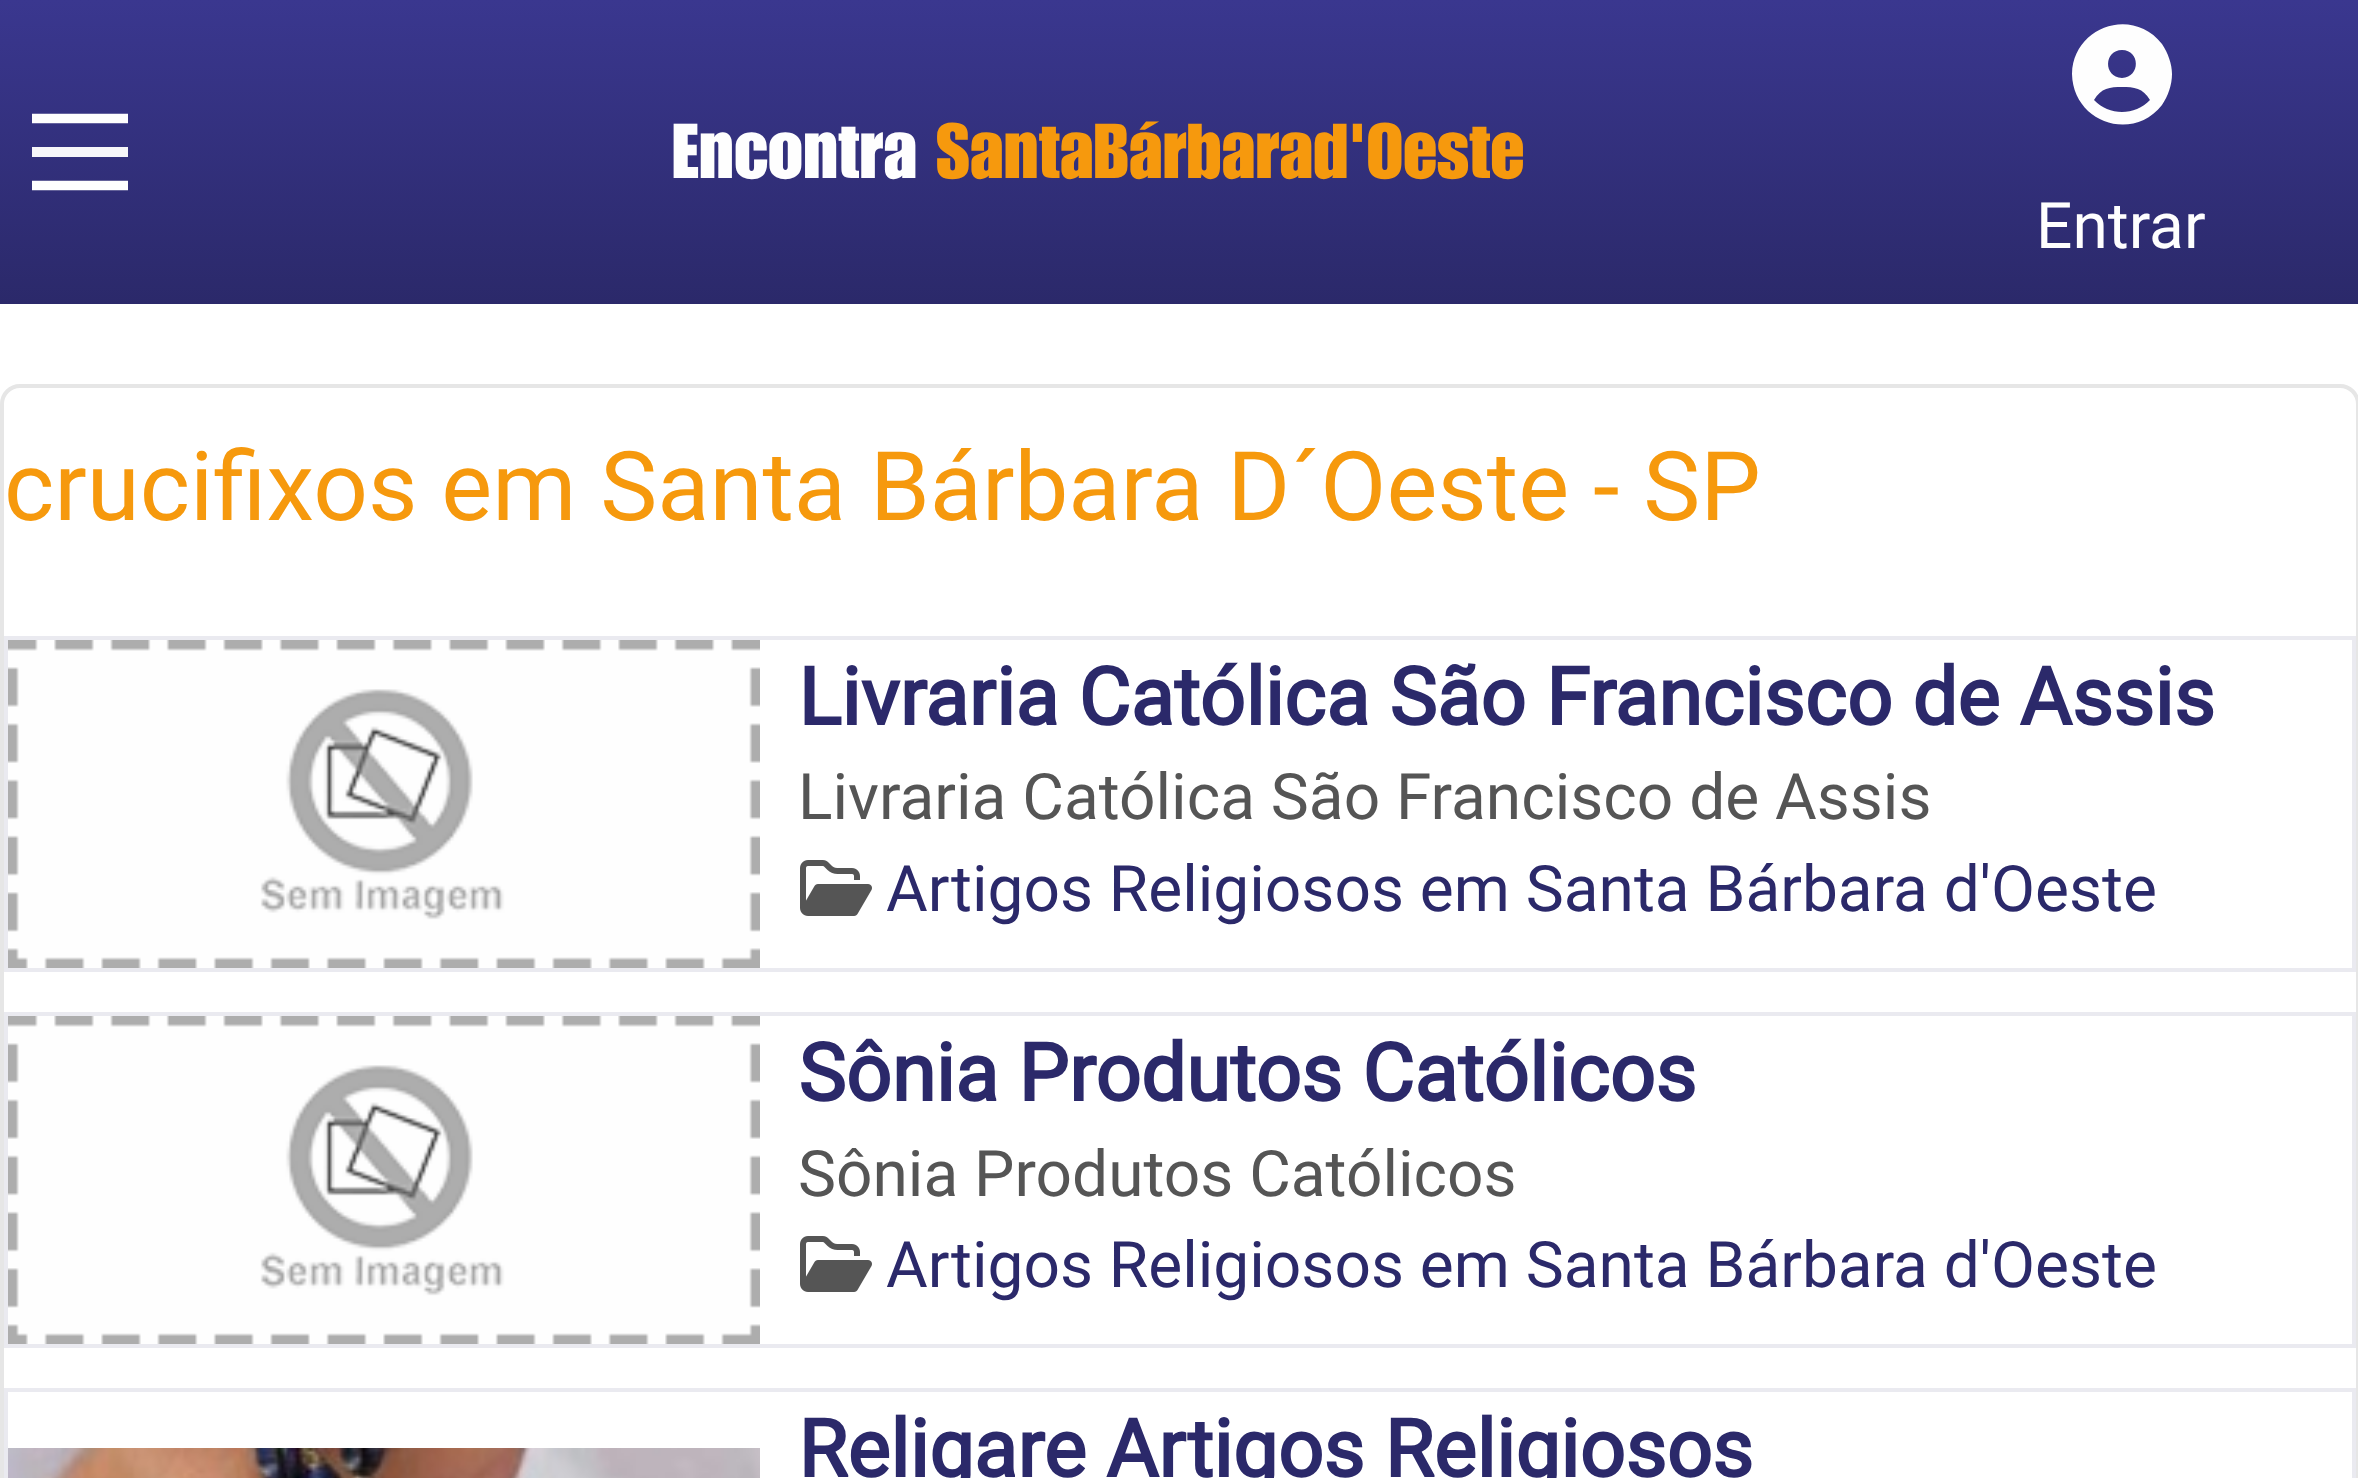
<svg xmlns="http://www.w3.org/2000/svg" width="2358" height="1478">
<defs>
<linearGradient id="g1" gradientUnits="userSpaceOnUse" x1="1180" y1="0" x2="1180" y2="304"><stop offset="0" stop-color="#3a378f"/><stop offset="1" stop-color="#2b296a"/></linearGradient>
</defs>
<rect width="100%" height="100%" fill="#fff"/>
<rect width="2358" height="304" fill="url(#g1)"/>
<path d="M32 118.5h96" fill="none" stroke="#fefefe" stroke-width="9.6"/>
<rect x="32" y="147" width="96" height="10" fill="#f6f6f9"/>
<path d="M32 185.5h96" fill="none" stroke="#fefefe" stroke-width="9.6"/>
<text x="672" y="178" style="font-family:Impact;font-size:76px;font-weight:500;fill:#fefefe">Encontra</text>
<text x="936" y="178" style="font-family:Impact;font-size:76px;font-weight:500;fill:#f6990d">SantaBárbarad'Oeste</text>
<path d="M2150 100c-7-12-16-13-28-13c-12 0-21 1-28 13c15 16 41 16 56 0zm-78-26c1-47 60-68 90-30c6 9 10 20 10 30c0 11-4 22-10 31c-30 38-89 17-90-31zm50 4c19-1 18-28 0-28c-18 0-19 27 0 28z" fill="#fefefe"/>
<text x="2036" y="248" style="font-family:Roboto;font-size:64px;fill:#fefefe">Entrar</text>
<rect x="2" y="386" width="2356" height="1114" rx="18" fill="none" stroke="#e6e6e6" stroke-width="4"/>
<text x="4" y="520" style="font-family:Roboto;font-size:96px;fill:#f6990d">crucifixos em Santa Bárbara D´Oeste - SP</text>
<rect x="6" y="638" width="2348" height="332" fill="none" stroke="#eaeaf0" stroke-width="4"/>
<image x="8" y="640" width="752" height="328" href="media/1.png"/>
<text x="798" y="725" style="font-family:Roboto;font-size:80px;font-weight:bold;fill:#2b296a">Livraria Católica São Francisco de Assis</text>
<text x="798" y="819" style="font-family:Roboto;font-size:64px;fill:#555">Livraria Católica São Francisco de Assis</text>
<image x="800" y="860" width="72" height="56" href="media/2.png"/>
<text x="886" y="911" style="font-family:Roboto;font-size:64px;fill:#2b296a">Artigos Religiosos em Santa Bárbara d'Oeste</text>
<rect x="6" y="1014" width="2348" height="332" fill="none" stroke="#eaeaf0" stroke-width="4"/>
<image x="8" y="1016" width="752" height="328" href="media/1.png"/>
<text x="798" y="1101" style="font-family:Roboto;font-size:80px;font-weight:bold;fill:#2b296a">Sônia Produtos Católicos</text>
<text x="798" y="1196" style="font-family:Roboto;font-size:64px;fill:#555">Sônia Produtos Católicos</text>
<image x="800" y="1236" width="72" height="56" href="media/2.png"/>
<text x="886" y="1287" style="font-family:Roboto;font-size:64px;fill:#2b296a">Artigos Religiosos em Santa Bárbara d'Oeste</text>
<rect x="6" y="1390" width="2348" height="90" fill="none" stroke="#eaeaf0" stroke-width="4"/>
<image x="8" y="1448" width="752" height="30" href="media/3.png"/>
<text x="798" y="1477" style="font-family:Roboto;font-size:80px;font-weight:bold;fill:#2b296a">Religare Artigos Religiosos</text>
</svg>
